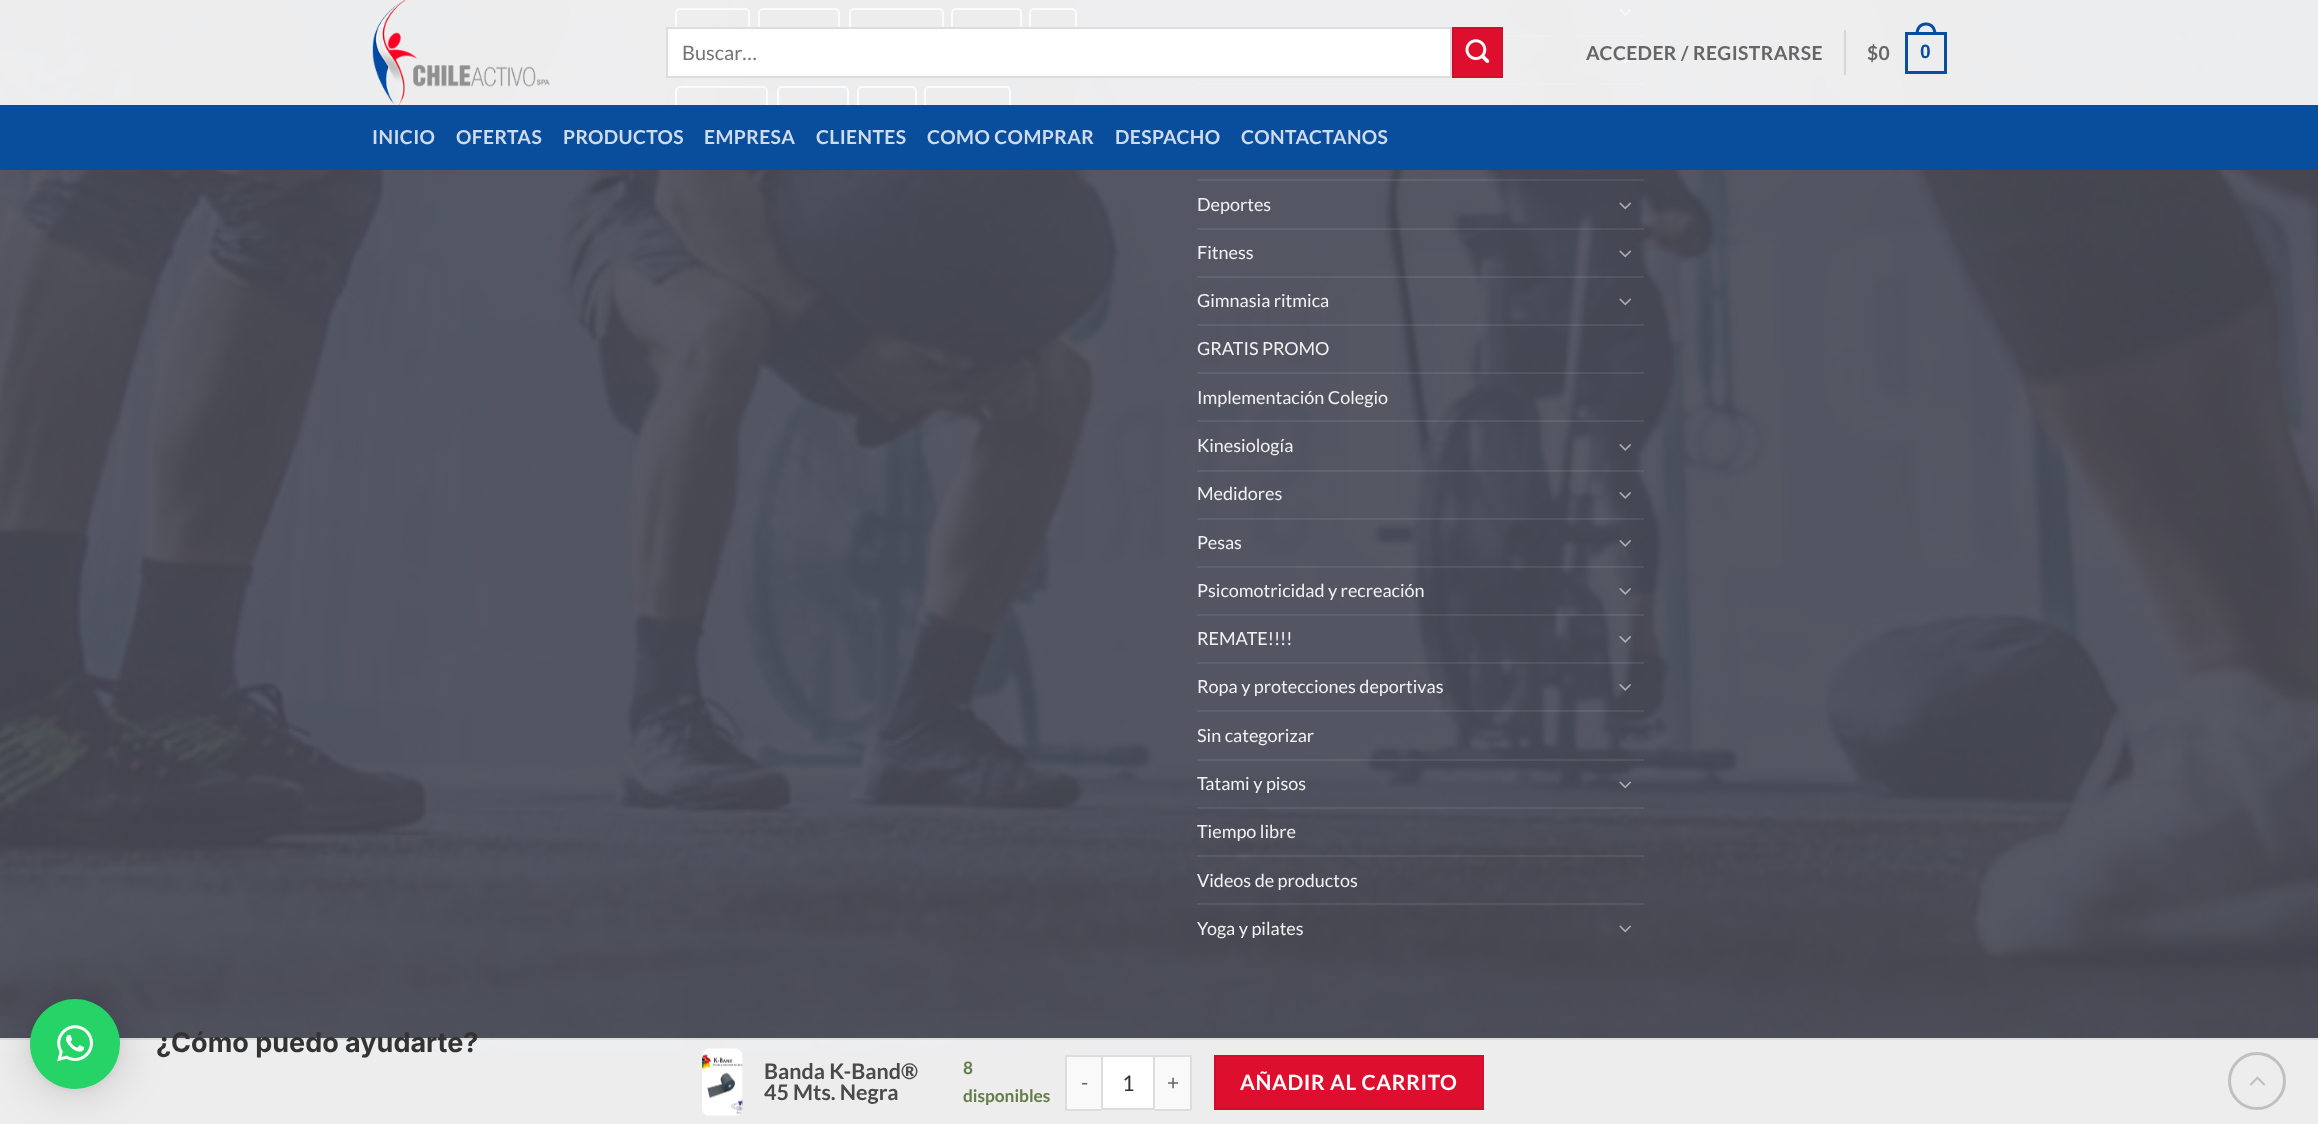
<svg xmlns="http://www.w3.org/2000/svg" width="2318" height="1124">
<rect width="100%" height="100%" fill="#4d4d4d"/>
<rect y="1052" width="2318" height="1" fill="#484a56"/>
<image x="0" y="0" width="2318" height="1053" href="media/3.png"/>
<rect x="676" y="9" width="73" height="29" rx="4" fill="none" stroke="#f1f1f1cc" stroke-width="2"/>
<rect x="759" y="9" width="80" height="29" rx="4" fill="none" stroke="#f1f1f1cc" stroke-width="2"/>
<rect x="850" y="9" width="93" height="29" rx="4" fill="none" stroke="#f1f1f1cc" stroke-width="2"/>
<rect x="952" y="9" width="69" height="29" rx="4" fill="none" stroke="#f1f1f1cc" stroke-width="2"/>
<rect x="1030" y="9" width="46" height="29" rx="4" fill="none" stroke="#f1f1f1cc" stroke-width="2"/>
<rect x="676" y="87" width="91" height="31" rx="4" fill="none" stroke="#f1f1f1cc" stroke-width="2"/>
<rect x="778" y="87" width="70" height="31" rx="4" fill="none" stroke="#f1f1f1cc" stroke-width="2"/>
<rect x="858" y="87" width="58" height="31" rx="4" fill="none" stroke="#f1f1f1cc" stroke-width="2"/>
<rect x="925" y="87" width="85" height="31" rx="4" fill="none" stroke="#f1f1f1cc" stroke-width="2"/>
<image x="1619" y="9" width="12" height="7" href="media/4.png"/>
<rect x="1503" y="35" width="141" height="2" fill="#ffffff14"/>
<image x="1619" y="57" width="12" height="7" href="media/5.png"/>
<rect x="1197" y="83" width="447" height="2" fill="#ffffff14"/>
<rect width="2318" height="105" fill="#ffffffe6"/>
<image x="372" y="0" width="178" height="105" href="media/1.png"/>
<rect x="667" y="28" width="784" height="49" fill="#fff" stroke="#ddd" stroke-width="2"/>
<text x="682" y="60" style="font-family:Lato;font-size:20px;fill:#757575">Buscar…</text>
<rect x="1453" y="28" width="49" height="49" fill="#de0f2e" stroke="#d30e2c" stroke-width="2"/>
<image x="1465" y="39" width="25" height="24" href="media/2.png"/>
<text x="1586" y="60" style="font-family:Lato;font-size:19.25px;font-weight:bold;letter-spacing:0.4px;fill:#666">ACCEDER / REGISTRARSE</text>
<rect x="1844" y="30" width="2" height="45" fill="#d6d6d7"/>
<text x="1867" y="60" style="font-family:Lato;font-size:19.25px;font-weight:bold;letter-spacing:0.4px;fill:#666">$0</text>
<rect x="1906.5" y="33.5" width="39" height="39" fill="none" stroke="#094d9d" stroke-width="3"/>
<path d="M1926 22.5c7 0 10.5 5.5 10.5 12h-21c0-6.5 3.5-12 10.5-12zm0 3c5.5 0 7.5 4.5 7.5 9h-15c0-4.5 2-9 7.5-9z" fill="#094d9d" fill-rule="evenodd"/>
<text x="1920" y="58" style="font-family:Liberation Sans;font-size:19.25px;font-weight:bold;letter-spacing:0.4px;fill:#094d9d">0</text>
<rect y="105" width="2318" height="65" fill="#094d9d"/>
<rect x="372" y="105" width="1575" height="2" fill="#104d95"/>
<text x="372" y="144" style="font-family:Lato;font-size:19.25px;font-weight:bold;letter-spacing:0.4px;fill:#cedbeb">INICIO</text>
<text x="456" y="144" style="font-family:Lato;font-size:19.25px;font-weight:bold;letter-spacing:0.4px;fill:#cedbeb">OFERTAS</text>
<text x="563" y="144" style="font-family:Lato;font-size:19.25px;font-weight:bold;letter-spacing:0.4px;fill:#cedbeb">PRODUCTOS</text>
<text x="704" y="144" style="font-family:Lato;font-size:19.25px;font-weight:bold;letter-spacing:0.4px;fill:#cedbeb">EMPRESA</text>
<text x="816" y="144" style="font-family:Lato;font-size:19.25px;font-weight:bold;letter-spacing:0.4px;fill:#cedbeb">CLIENTES</text>
<text x="927" y="144" style="font-family:Lato;font-size:19.25px;font-weight:bold;letter-spacing:0.4px;fill:#cedbeb">COMO COMPRAR</text>
<text x="1115" y="144" style="font-family:Lato;font-size:19.25px;font-weight:bold;letter-spacing:0.4px;fill:#cedbeb">DESPACHO</text>
<text x="1241" y="144" style="font-family:Lato;font-size:19.25px;font-weight:bold;letter-spacing:0.4px;fill:#cedbeb">CONTACTANOS</text>
<rect x="1197" y="179" width="447" height="2" fill="#ffffff14"/>
<text x="1197" y="211" style="font-family:Lato;font-size:18px;fill:#f1f1f1">Deportes</text>
<image x="1619" y="202" width="12" height="8" href="media/6.png"/>
<rect x="1197" y="228" width="447" height="2" fill="#ffffff14"/>
<text x="1197" y="259" style="font-family:Lato;font-size:18px;fill:#f1f1f1">Fitness</text>
<image x="1619" y="250" width="12" height="8" href="media/7.png"/>
<rect x="1197" y="276" width="447" height="2" fill="#ffffff14"/>
<text x="1197" y="307" style="font-family:Lato;font-size:18px;fill:#f1f1f1">Gimnasia ritmica</text>
<image x="1619" y="298" width="12" height="8" href="media/8.png"/>
<rect x="1197" y="324" width="447" height="2" fill="#ffffff14"/>
<text x="1197" y="355" style="font-family:Lato;font-size:18px;fill:#f1f1f1">GRATIS PROMO</text>
<rect x="1197" y="372" width="447" height="2" fill="#ffffff14"/>
<text x="1197" y="404" style="font-family:Lato;font-size:18px;fill:#f1f1f1">Implementación Colegio</text>
<rect x="1197" y="420" width="447" height="2" fill="#ffffff14"/>
<text x="1197" y="452" style="font-family:Lato;font-size:18px;fill:#f1f1f1">Kinesiología</text>
<image x="1619" y="444" width="12" height="7" href="media/9.png"/>
<rect x="1197" y="470" width="447" height="2" fill="#ffffff14"/>
<text x="1197" y="500" style="font-family:Lato;font-size:18px;fill:#f1f1f1">Medidores</text>
<image x="1619" y="492" width="12" height="7" href="media/10.png"/>
<rect x="1197" y="518" width="447" height="2" fill="#ffffff14"/>
<text x="1197" y="549" style="font-family:Lato;font-size:18px;fill:#f1f1f1">Pesas</text>
<image x="1619" y="540" width="12" height="7" href="media/11.png"/>
<rect x="1197" y="566" width="447" height="2" fill="#ffffff14"/>
<text x="1197" y="597" style="font-family:Lato;font-size:18px;fill:#f1f1f1">Psicomotricidad y recreación</text>
<image x="1619" y="588" width="12" height="7" href="media/12.png"/>
<rect x="1197" y="614" width="447" height="2" fill="#ffffff14"/>
<text x="1197" y="645" style="font-family:Lato;font-size:18px;fill:#f1f1f1">REMATE!!!!</text>
<image x="1619" y="636" width="12" height="7" href="media/13.png"/>
<rect x="1197" y="662" width="447" height="2" fill="#ffffff14"/>
<text x="1197" y="693" style="font-family:Lato;font-size:18px;fill:#f1f1f1">Ropa y protecciones deportivas</text>
<image x="1619" y="684" width="12" height="7" href="media/14.png"/>
<rect x="1197" y="710" width="447" height="2" fill="#ffffff14"/>
<text x="1197" y="742" style="font-family:Lato;font-size:18px;fill:#f1f1f1">Sin categorizar</text>
<rect x="1197" y="759" width="447" height="2" fill="#ffffff14"/>
<text x="1197" y="790" style="font-family:Lato;font-size:18px;fill:#f1f1f1">Tatami y pisos</text>
<image x="1619" y="781" width="12" height="8" href="media/15.png"/>
<rect x="1197" y="807" width="447" height="2" fill="#ffffff14"/>
<text x="1197" y="838" style="font-family:Lato;font-size:18px;fill:#f1f1f1">Tiempo libre</text>
<rect x="1197" y="855" width="447" height="2" fill="#ffffff14"/>
<text x="1197" y="887" style="font-family:Lato;font-size:18px;fill:#f1f1f1">Videos de productos</text>
<rect x="1197" y="903" width="447" height="2" fill="#ffffff14"/>
<text x="1197" y="935" style="font-family:Lato;font-size:18px;fill:#f1f1f1">Yoga y pilates</text>
<image x="1619" y="925" width="12" height="8" href="media/16.png"/>
<rect y="1040" width="2318" height="84" fill="#ffffffe6"/>
<circle cx="2257" cy="1081" r="27.5" fill="none" stroke="#c0c0c0" stroke-width="3"/>
<image x="2249" y="1076" width="17" height="10" href="media/17.png"/>
<rect y="1038" width="2318" height="2" fill="#ddd"/>
<rect x="30" y="1002" width="90" height="90" rx="45" fill="#00000029" filter="blur(24px)"/>
<rect x="30" y="1001" width="90" height="90" rx="45" fill="#0000000f" filter="blur(4.5px)"/>
<circle cx="75" cy="1044" r="45" fill="#25d366"/>
<image x="57" y="1025" width="36" height="37" href="media/18.png"/>
<text x="156" y="1052" style="font-family:Inter;font-size:27px;font-weight:bold;fill:#333">¿Cómo puedo ayudarte?</text>
<image x="702" y="1048" width="41" height="68" href="media/19.png"/>
<text x="764" y="1079" style="font-family:Lato;font-size:21.5px;font-weight:bold;fill:#4a4a4a">Banda K-Band®</text>
<text x="764" y="1100" style="font-family:Lato;font-size:21.5px;font-weight:bold;fill:#4a4a4a">45 Mts. Negra</text>
<text x="963" y="1074" style="font-family:Lato;font-size:17.25px;font-weight:bold;fill:#627d47">8</text>
<text x="963" y="1102" style="font-family:Lato;font-size:17.25px;font-weight:bold;fill:#627d47">disponibles</text>
<rect x="1067" y="1057" width="34" height="52" fill="#f9f9f9"/>
<rect x="1065" y="1055" width="36" height="2" fill="#ddd"/>
<rect x="1065" y="1109" width="36" height="2" fill="#ddd"/>
<rect x="1065" y="1055" width="2" height="55" fill="#ddd"/>
<text x="1081" y="1090" style="font-family:Lato;font-size:21px;letter-spacing:0.6px;fill:#666">-</text>
<rect x="1102" y="1056" width="52" height="53" fill="#fff" stroke="#ddd" stroke-width="2"/>
<text x="1122" y="1091" style="font-family:Lato;font-size:21.5px;fill:#333">1</text>
<rect x="1155" y="1057" width="35" height="52" fill="#f9f9f9"/>
<rect x="1155" y="1055" width="36" height="2" fill="#ddd"/>
<rect x="1190" y="1055" width="2" height="55" fill="#ddd"/>
<rect x="1155" y="1109" width="36" height="2" fill="#ddd"/>
<text x="1167" y="1090" style="font-family:Lato;font-size:21px;letter-spacing:0.6px;fill:#666">+</text>
<rect x="1215" y="1056" width="268" height="53" fill="#de0f2e" stroke="#d30e2c" stroke-width="2"/>
<text x="1240" y="1090" style="font-family:Lato;font-size:21px;font-weight:bold;letter-spacing:0.6px;fill:#fff">AÑADIR AL CARRITO</text>
</svg>
